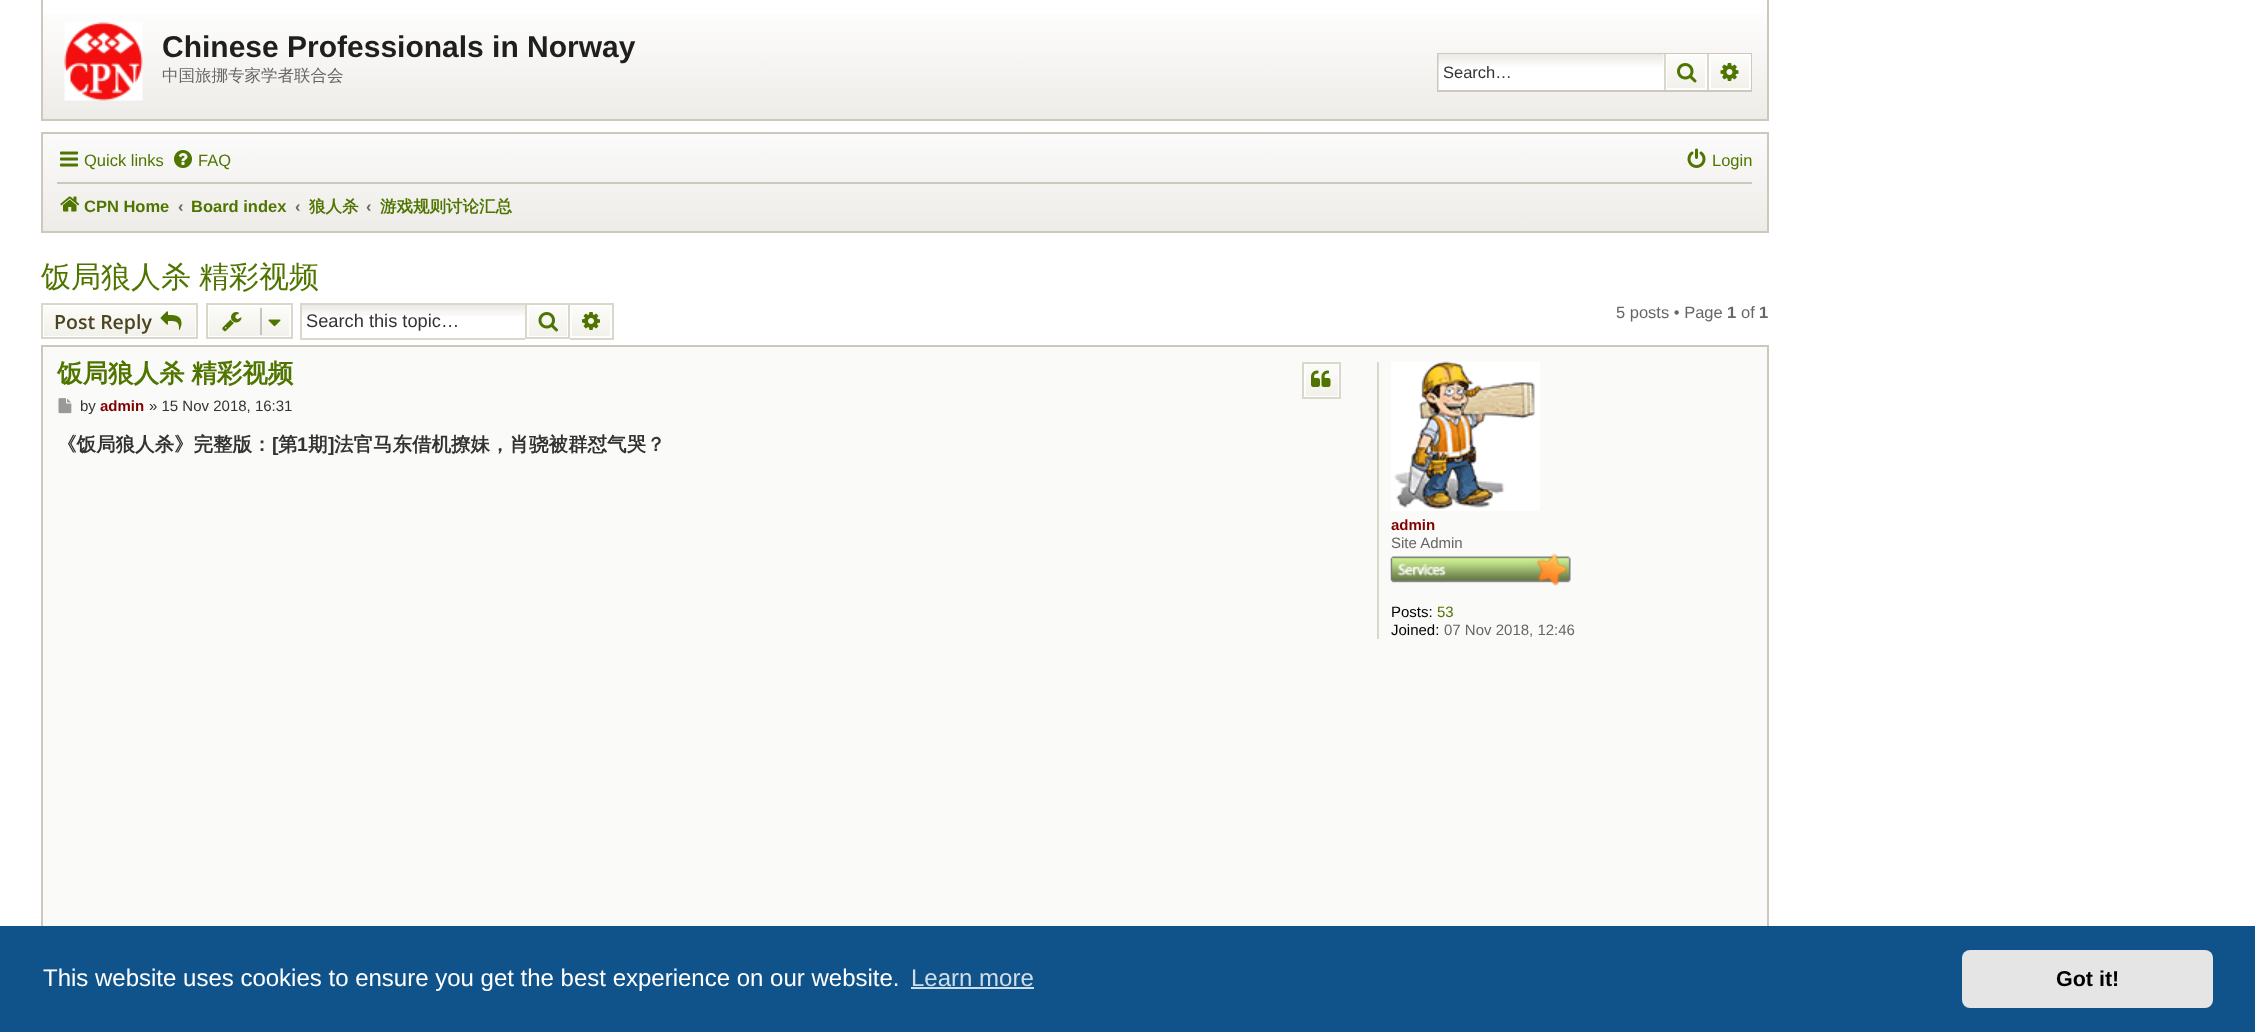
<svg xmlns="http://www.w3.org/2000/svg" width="2255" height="1032">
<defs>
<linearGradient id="g1" gradientUnits="userSpaceOnUse" x1="905" y1="0" x2="905" y2="119"><stop offset="0" stop-color="#fff"/><stop offset="1" stop-color="#eeece8"/></linearGradient>
<linearGradient id="g2" gradientUnits="userSpaceOnUse" x1="1686" y1="54" x2="1686" y2="90"><stop offset="0" stop-color="#fcfcfa"/><stop offset="1" stop-color="#f1f0ea"/></linearGradient>
<linearGradient id="g3" gradientUnits="userSpaceOnUse" x1="1730" y1="54" x2="1730" y2="90"><stop offset="0" stop-color="#fcfcfa"/><stop offset="1" stop-color="#f1f0ea"/></linearGradient>
<linearGradient id="g4" gradientUnits="userSpaceOnUse" x1="905" y1="133" x2="905" y2="231"><stop offset="0" stop-color="#fbfbfb"/><stop offset="1" stop-color="#eeece8"/></linearGradient>
<linearGradient id="g5" gradientUnits="userSpaceOnUse" x1="119" y1="305" x2="119" y2="338"><stop offset="0" stop-color="#fcfcfa"/><stop offset="1" stop-color="#f1f0ea"/></linearGradient>
<linearGradient id="g6" gradientUnits="userSpaceOnUse" x1="249" y1="305" x2="249" y2="338"><stop offset="0" stop-color="#fcfcfa"/><stop offset="1" stop-color="#f1f0ea"/></linearGradient>
<linearGradient id="g7" gradientUnits="userSpaceOnUse" x1="548" y1="305" x2="548" y2="338"><stop offset="0" stop-color="#fcfcfa"/><stop offset="1" stop-color="#f1f0ea"/></linearGradient>
<linearGradient id="g8" gradientUnits="userSpaceOnUse" x1="591" y1="305" x2="591" y2="338"><stop offset="0" stop-color="#fcfcfa"/><stop offset="1" stop-color="#f1f0ea"/></linearGradient>
<linearGradient id="g9" gradientUnits="userSpaceOnUse" x1="1322" y1="363" x2="1322" y2="398"><stop offset="0" stop-color="#fcfcfa"/><stop offset="1" stop-color="#f1f0ea"/></linearGradient>
</defs>
<rect width="100%" height="100%" fill="#fff"/>
<rect x="43" y="13" width="1724" height="106" fill="url(#g1)"/>
<rect x="1767" width="2" height="120" fill="#cec7bd"/>
<rect x="41" y="119" width="1728" height="2" fill="#cec7bd"/>
<rect x="41" width="2" height="120" fill="#cec7bd"/>
<image x="64" y="22" width="79" height="79" href="media/1.png"/>
<text x="162" y="57" style="font-family:Liberation Sans;font-size:30px;font-weight:bold;fill:#1f1f1f">Chinese Professionals in Norway</text>
<text x="162" y="81" style="font-family:WenQuanYi Zen Hei;font-size:16.5px;font-weight:500;fill:#666">中国旅挪专家学者联合会</text>
<rect x="1438" y="54" width="313" height="37" fill="none" stroke="#cec7bd" stroke-width="2"/>
<rect x="1663" y="54" width="1" height="36" fill="#fff"/>
<image x="1438" y="54" width="226" height="36" href="media/2.png"/>
<text x="1443" y="78" style="font-family:Liberation Sans;font-size:16.5px;fill:#333">Search…</text>
<rect x="1667" y="56" width="38" height="32" fill="url(#g2)"/>
<rect x="1666" y="55" width="40" height="34" fill="none" stroke="#fefefc" stroke-width="2"/>
<rect x="1707" y="54" width="2" height="36" fill="#dad7cb"/>
<rect x="1664" y="54" width="2" height="36" fill="#dad7cb"/>
<image x="1677" y="63" width="20" height="20" href="media/3.png"/>
<rect x="1711" y="56" width="38" height="32" fill="url(#g3)"/>
<rect x="1710" y="55" width="40" height="34" fill="none" stroke="#fefefc" stroke-width="2"/>
<image x="1720" y="63" width="19" height="18" href="media/4.png"/>
<rect x="43" y="134" width="1724" height="97" fill="url(#g4)"/>
<rect x="42" y="133" width="1726" height="99" fill="none" stroke="#cec7bd" stroke-width="2"/>
<image x="60" y="151" width="18" height="16" href="media/5.png"/>
<text x="84" y="166" style="font-family:Liberation Sans;font-size:16.5px;fill:#4f7500">Quick links</text>
<image x="174" y="150" width="18" height="18" href="media/6.png"/>
<text x="198" y="166" style="font-family:Liberation Sans;font-size:16.5px;fill:#4f7500">FAQ</text>
<image x="1687" y="148" width="19" height="20" href="media/7.png"/>
<text x="1712" y="166" style="font-family:Liberation Sans;font-size:16.5px;fill:#4f7500">Login</text>
<rect x="57" y="182" width="1695" height="2" fill="#cec7bd"/>
<image x="60" y="196" width="20" height="16" href="media/8.png"/>
<text x="84" y="212" style="font-family:Liberation Sans;font-size:16.5px;font-weight:bold;fill:#4f7500">CPN Home</text>
<text x="178" y="212" style="font-family:Liberation Sans;font-size:16.5px;font-weight:bold;fill:#666">‹</text>
<text x="191" y="212" style="font-family:Liberation Sans;font-size:16.5px;font-weight:bold;fill:#4f7500">Board index</text>
<text x="295" y="212" style="font-family:Liberation Sans;font-size:16.5px;font-weight:bold;fill:#666">‹</text>
<text x="309" y="212" style="font-family:WenQuanYi Zen Hei;font-size:16.5px;font-weight:bold;fill:#4f7500">狼人杀</text>
<text x="366" y="212" style="font-family:Liberation Sans;font-size:16.5px;font-weight:bold;fill:#666">‹</text>
<text x="380" y="212" style="font-family:WenQuanYi Zen Hei;font-size:16.5px;font-weight:bold;fill:#4f7500">游戏规则讨论汇总</text>
<text x="41" y="287" word-spacing="-1" style="font-family:WenQuanYi Zen Hei;font-size:30px;font-weight:500;fill:#4f7500">饭局狼人杀 精彩视频</text>
<rect x="44" y="307" width="151" height="29" fill="url(#g5)"/>
<rect x="43" y="306" width="153" height="31" fill="none" stroke="#fefefc" stroke-width="2"/>
<rect x="42" y="304" width="155" height="34" fill="none" stroke="#dad7cb" stroke-width="2"/>
<text x="54" y="329" style="font-family:Open Sans;font-size:19.5px;font-weight:600;fill:#4b4420">Post Reply</text>
<image x="160" y="311" width="22" height="19" href="media/9.png"/>
<rect x="209" y="307" width="80" height="29" fill="url(#g6)"/>
<rect x="208" y="306" width="82" height="31" fill="none" stroke="#fefefc" stroke-width="2"/>
<rect x="207" y="304" width="85" height="34" fill="none" stroke="#dad7cb" stroke-width="2"/>
<image x="222" y="312" width="20" height="20" href="media/10.png"/>
<rect x="260" y="308" width="2" height="27" fill="#c7c3bf"/>
<image x="268" y="319" width="13" height="8" href="media/11.png"/>
<image x="302" y="305" width="223" height="11" href="media/12.png"/>
<rect x="300" y="303" width="225" height="2" fill="#dad7cb"/>
<rect x="300" y="338" width="225" height="2" fill="#dad7cb"/>
<rect x="300" y="303" width="2" height="36" fill="#dad7cb"/>
<text x="306" y="327" style="font-family:Liberation Sans;font-size:18.25px;fill:#333">Search this topic…</text>
<rect x="529" y="307" width="38" height="29" fill="url(#g7)"/>
<rect x="528" y="306" width="40" height="31" fill="none" stroke="#fefefc" stroke-width="2"/>
<rect x="526" y="304" width="43" height="34" fill="none" stroke="#dad7cb" stroke-width="2"/>
<image x="538" y="312" width="20" height="20" href="media/13.png"/>
<rect x="572" y="307" width="38" height="29" fill="url(#g8)"/>
<rect x="571" y="306" width="40" height="31" fill="none" stroke="#fefefc" stroke-width="2"/>
<rect x="570" y="303" width="44" height="2" fill="#dad7cb"/>
<rect x="612" y="303" width="2" height="36" fill="#dad7cb"/>
<rect x="570" y="338" width="44" height="2" fill="#dad7cb"/>
<image x="582" y="312" width="18" height="18" href="media/14.png"/>
<text x="1616" y="318" style="font-family:Liberation Sans;font-size:16.5px;fill:#666">5 posts • Page</text>
<text x="1727" y="318" style="font-family:Liberation Sans;font-size:16.5px;font-weight:bold;fill:#666">1</text>
<text x="1741" y="318" style="font-family:Liberation Sans;font-size:16.5px;fill:#666">of</text>
<text x="1759" y="318" style="font-family:Liberation Sans;font-size:16.5px;font-weight:bold;fill:#666">1</text>
<rect x="43" y="347" width="1724" height="579" fill="#fafaf8"/>
<rect x="42" y="346" width="1726" height="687" fill="none" stroke="#cec7bd" stroke-width="2"/>
<text x="57" y="382" word-spacing="-1" style="font-family:WenQuanYi Zen Hei;font-size:25.5px;font-weight:bold;fill:#4f7500">饭局狼人杀 精彩视频</text>
<rect x="1306" y="373" width="32" height="23" fill="url(#g9)"/>
<rect x="1305" y="364" width="34" height="33" fill="none" stroke="#fefefc" stroke-width="2"/>
<rect x="1303" y="363" width="37" height="35" fill="none" stroke="#dad7cb" stroke-width="2"/>
<image x="1311" y="370" width="20" height="17" href="media/15.png"/>
<image x="58" y="398" width="14" height="16" href="media/16.png"/>
<text x="80" y="411" style="font-family:Liberation Sans;font-size:15px;fill:#333">by</text>
<text x="100" y="411" style="font-family:Liberation Sans;font-size:15px;font-weight:bold;fill:#800000">admin</text>
<text x="149" y="411" style="font-family:Liberation Sans;font-size:15px;fill:#333">» 15 Nov 2018, 16:31</text>
<text x="57" y="451" style="font-family:WenQuanYi Zen Hei;font-size:19.5px;font-weight:bold;fill:#333">《饭局狼人杀》完整版：</text>
<text x="272" y="451" style="font-family:Liberation Sans;font-size:19.5px;font-weight:bold;fill:#333">[</text>
<text x="278" y="451" style="font-family:WenQuanYi Zen Hei;font-size:19.5px;font-weight:bold;fill:#333">第</text>
<text x="297" y="451" style="font-family:Liberation Sans;font-size:19.5px;font-weight:bold;fill:#333">1</text>
<text x="308" y="451" style="font-family:WenQuanYi Zen Hei;font-size:19.5px;font-weight:bold;fill:#333">期</text>
<text x="328" y="451" style="font-family:Liberation Sans;font-size:19.5px;font-weight:bold;fill:#333">]</text>
<text x="334" y="451" style="font-family:WenQuanYi Zen Hei;font-size:19.5px;font-weight:bold;fill:#333">法官马东借机撩妹，肖骁被群怼气哭？</text>
<rect x="1377" y="362" width="2" height="277" fill="#dad7cb"/>
<image x="1391" y="361" width="149" height="150" href="media/17.png"/>
<text x="1391" y="530" style="font-family:Liberation Sans;font-size:15px;font-weight:bold;fill:#800000">admin</text>
<text x="1391" y="548" style="font-family:Liberation Sans;font-size:15px;fill:#666">Site Admin</text>
<image x="1390" y="553" width="181" height="34" href="media/18.png"/>
<text x="1391" y="617" style="font-family:Liberation Sans;font-size:15px;fill:#000">Posts:</text>
<text x="1437" y="617" style="font-family:Liberation Sans;font-size:15px;fill:#4f7500">53</text>
<text x="1391" y="635" style="font-family:Liberation Sans;font-size:15px;fill:#000">Joined:</text>
<text x="1444" y="635" style="font-family:Liberation Sans;font-size:15px;fill:#666">07 Nov 2018, 12:46</text>
<rect y="926" width="2255" height="106" fill="#0f538a"/>
<text x="43" y="986" style="font-family:Liberation Sans;font-size:24px;fill:#fff">This website uses cookies to ensure you get the best experience on our website.</text>
<text x="911" y="986" style="font-family:Liberation Sans;font-size:24px;fill:#cfdde8">Learn more</text>
<rect x="911" y="987" width="123" height="2" fill="#cfdde8"/>
<rect x="1962" y="950" width="251" height="58" rx="8" fill="#e5e5e5"/>
<text x="2056" y="986" style="font-family:Liberation Sans;font-size:21.5px;font-weight:bold;fill:#000">Got it!</text>
</svg>
